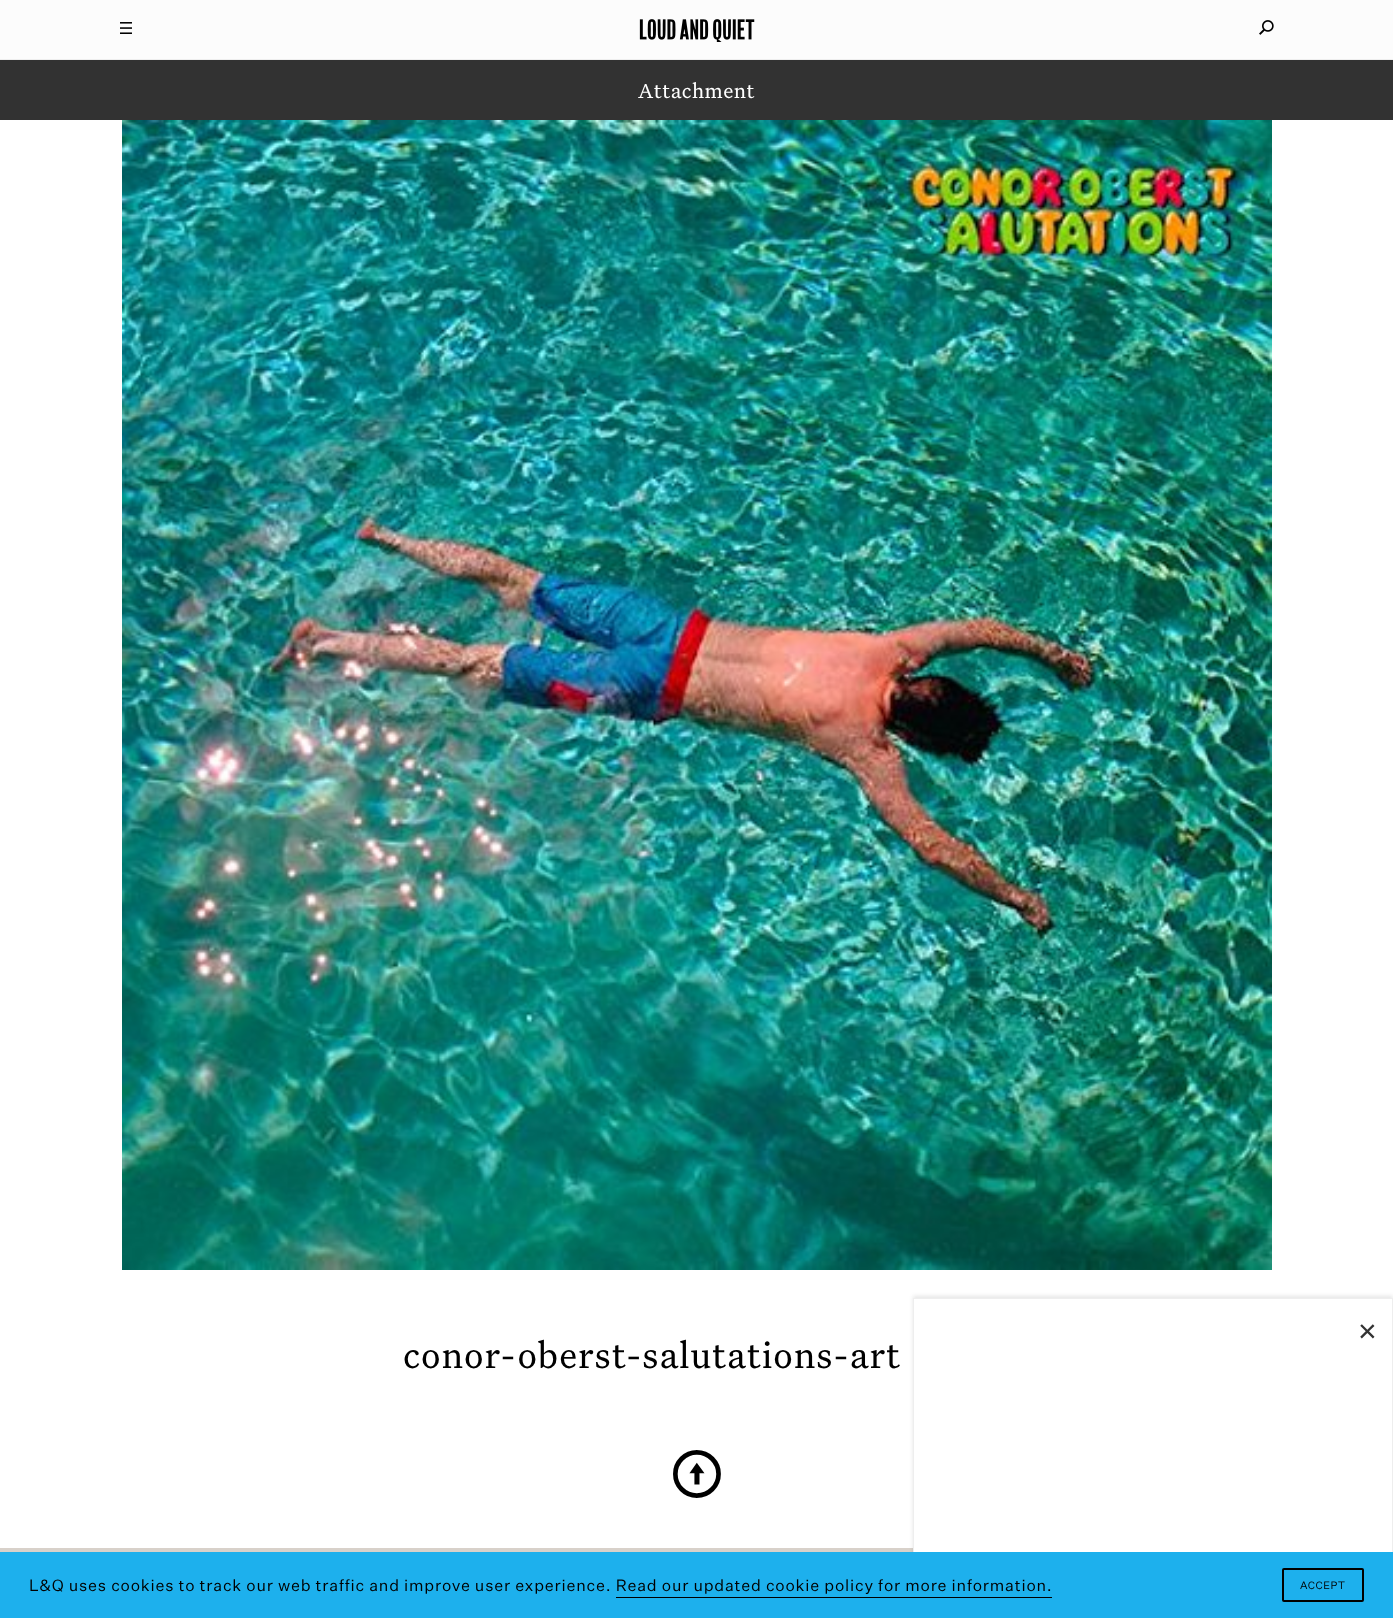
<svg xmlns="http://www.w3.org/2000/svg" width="1393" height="1618">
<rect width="100%" height="100%" fill="#fff"/>
<rect width="1393" height="59" fill="#fcfcfc"/>
<rect y="59" width="1393" height="1" fill="#eee"/>
<image x="120" y="22" width="12" height="12" href="media/1.png"/>
<image x="639" y="19" width="116" height="23" href="media/2.png"/>
<image x="1259" y="20" width="15" height="15" href="media/3.png"/>
<rect y="60" width="1393" height="60" fill="#323232"/>
<text x="638" y="98" style="font-family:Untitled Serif;font-size:21.75px;letter-spacing:0.5px;fill:#fff">Attachment</text>
<image x="122" y="120" width="1150" height="1150" href="media/4.png"/>
<text x="403" y="1368" style="font-family:Untitled Serif;font-size:38.5px;letter-spacing:0.95px;fill:#000">conor-oberst-salutations-art</text>
<text x="673" y="1498" style="font-family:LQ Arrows;font-size:96px;fill:#000">↑</text>
<rect y="1548" width="913" height="4" fill="#d8d1ca"/>
<rect x="913" y="1296" width="480" height="320" fill="#0000001a" filter="blur(2px)"/>
<rect x="914" y="1299" width="478" height="253" fill="#fff"/>
<rect x="913.5" y="1298.5" width="479" height="319" fill="none" stroke="#eee"/>
<text x="1358" y="1342" style="font-family:Liberation Sans;font-size:32px;fill:#333">×</text>
<rect y="1552" width="1393" height="66" fill="#1db0ed"/>
<text x="29" y="1591" style="font-family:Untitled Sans;font-size:16px;letter-spacing:0.8px;fill:#000">L&amp;Q uses cookies to track our web traffic and improve user experience. Read our updated cookie policy for more information.</text>
<rect x="616" y="1597" width="436" height="1" fill="#000"/>
<rect x="1283" y="1569" width="80" height="32" rx="1" fill="none" stroke="#000" stroke-width="2"/>
<text x="1300" y="1589" style="font-family:Untitled Sans;font-size:10.5px;letter-spacing:0.5px;fill:#000">ACCEPT</text>
</svg>
